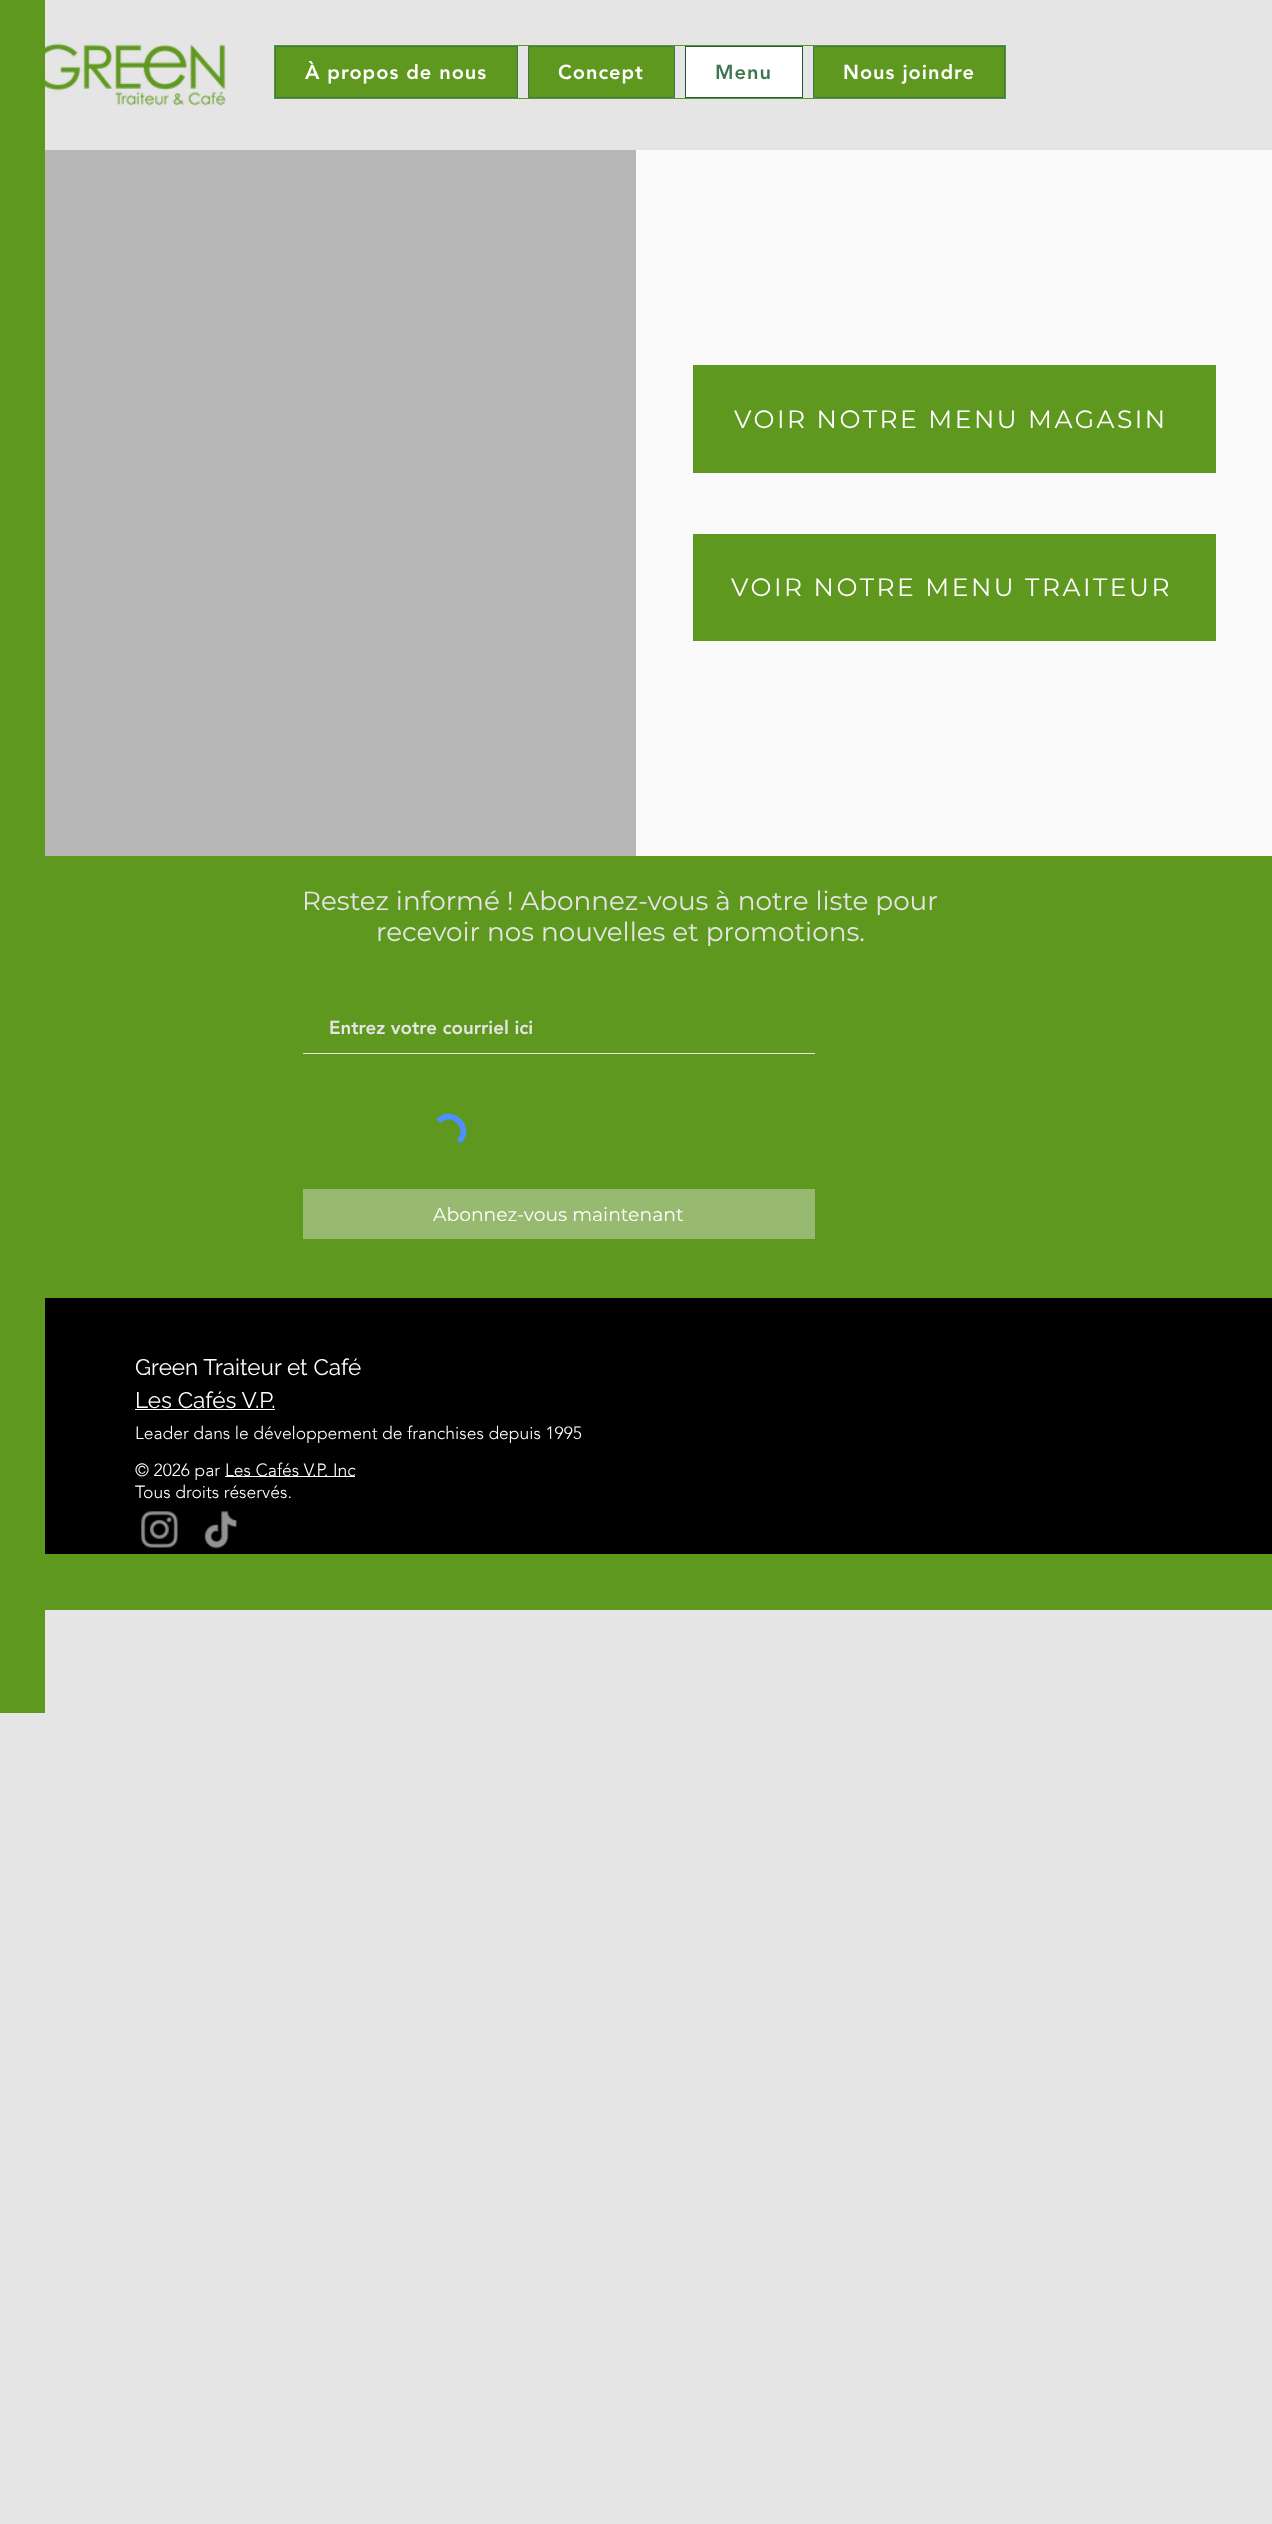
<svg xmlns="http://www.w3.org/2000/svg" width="1272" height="2524">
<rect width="100%" height="100%" fill="#e5e5e5"/>
<rect width="45" height="1713" fill="#5f981f"/>
<image x="45" y="43" width="181" height="63" href="media/1.png"/>
<rect x="274.5" y="45.5" width="731" height="53" fill="none" stroke="#5f981f"/>
<rect x="275.5" y="46.5" width="242" height="51" fill="#5f981f" stroke="#3f7652"/>
<text x="305" y="79" style="font-family:'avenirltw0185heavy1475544';font-size:20px;font-weight:900;letter-spacing:1px;fill:#fff">À propos de nous</text>
<rect x="528.5" y="46.5" width="146" height="51" fill="#5f981f" stroke="#3f7652"/>
<text x="558" y="79" style="font-family:'avenirltw0185heavy1475544';font-size:20px;font-weight:900;letter-spacing:1px;fill:#fff">Concept</text>
<rect x="685.5" y="46.5" width="117" height="51" fill="#fff" stroke="#1b5b3f"/>
<text x="715" y="79" style="font-family:'avenirltw0185heavy1475544';font-size:20px;font-weight:900;letter-spacing:1px;fill:#3f7652">Menu</text>
<rect x="813.5" y="46.5" width="191" height="51" fill="#5f981f" stroke="#3f7652"/>
<text x="843" y="79" style="font-family:'avenirltw0185heavy1475544';font-size:20px;font-weight:900;letter-spacing:1px;fill:#fff">Nous joindre</text>
<rect x="45" y="150" width="591" height="706" fill="#b7b7b7"/>
<rect x="636" y="150" width="636" height="706" fill="#fafafa"/>
<rect x="693" y="365" width="523" height="108" fill="#5f981f"/>
<text x="734" y="428" style="font-family:Montserrat;font-size:25px;letter-spacing:2.5px;fill:#fff">VOIR NOTRE MENU MAGASIN</text>
<rect x="693" y="534" width="523" height="107" fill="#5f981f"/>
<text x="731" y="596" style="font-family:Montserrat;font-size:25px;letter-spacing:2.5px;fill:#fff">VOIR NOTRE MENU TRAITEUR</text>
<rect x="45" y="856" width="1227" height="754" fill="#5f981f"/>
<text x="302" y="910" style="font-family:Montserrat;font-size:26.25px;fill:#e5e5e5">Restez informé ! Abonnez-vous à notre liste pour</text>
<text x="376" y="941" style="font-family:Montserrat;font-size:26.25px;fill:#e5e5e5">recevoir nos nouvelles et promotions.</text>
<rect x="303" y="1053" width="512" height="1" fill="#e5e5e5"/>
<text x="329" y="1034" style="font-family:'avenirltw0185heavy1475544';font-size:18.75px;font-weight:900;fill:#e5e5e5">Entrez votre courriel ici</text>
<path d="M438.5 1121c13.5-13.5 34 7 20.5 20.5" fill="none" stroke="#4d90fe" stroke-width="5.8"/>
<rect x="303" y="1189" width="512" height="50" fill="#97ba70"/>
<text x="433" y="1221" style="font-family:Montserrat;font-size:18.75px;fill:#fff">Abonnez-vous maintenant</text>
<rect x="45" y="1298" width="1227" height="256" fill="#000"/>
<text x="135" y="1375" style="font-family:Raleway;font-size:22.5px;fill:#fff">Green Traiteur et Café</text>
<text x="135" y="1408" style="font-family:Raleway;font-size:22.5px;fill:#fff">Les Cafés V.P.</text>
<rect x="135" y="1409" width="140" height="1" fill="#fff"/>
<text x="135" y="1439" style="font-family:'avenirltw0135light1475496';font-size:17.5px;font-weight:300;fill:#fff">Leader dans le développement de franchises depuis 1995</text>
<text x="135" y="1476" style="font-family:'avenirltw0135light1475496';font-size:17.5px;font-weight:300;fill:#fff">© 2026 par</text>
<rect x="225" y="1476" width="130" height="1" fill="#fff"/>
<text x="225" y="1476" style="font-family:'avenirltw0135light1475496';font-size:17.5px;font-weight:300;fill:#fff">Les Cafés V.P. Inc</text>
<text x="135" y="1498" style="font-family:'avenirltw0135light1475496';font-size:17.5px;font-weight:300;fill:#fff">Tous droits réservés.</text>
<image x="141" y="1511" width="37" height="37" href="media/2.png"/>
<image x="204" y="1511" width="33" height="38" href="media/3.png"/>
</svg>
